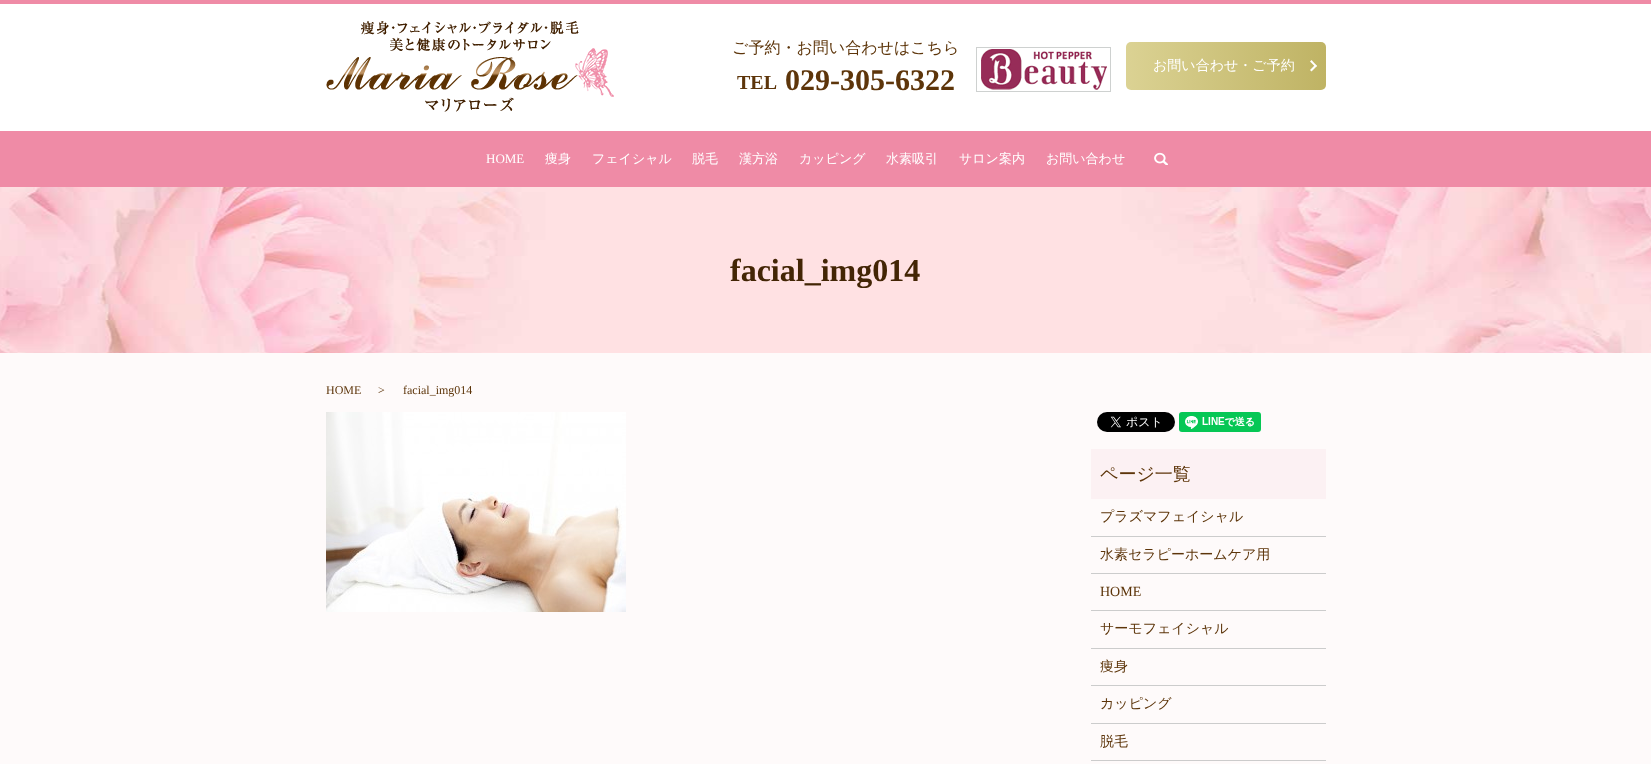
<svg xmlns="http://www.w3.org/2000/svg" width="1651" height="764">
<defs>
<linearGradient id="g1" gradientUnits="userSpaceOnUse" x1="1126" y1="66" x2="1326" y2="66"><stop offset="0" stop-color="#dbd293"/><stop offset="1" stop-color="#bfb364"/></linearGradient>
</defs>
<rect width="100%" height="100%" fill="#fefafa"/>
<rect y="4" width="1651" height="127" fill="#fff"/>
<rect width="1651" height="4" fill="#ef8ba6"/>
<image x="326" y="21" width="288" height="91" href="media/1.png"/>
<text x="732" y="53" style="font-family:WenQuanYi Zen Hei;font-size:16px;font-weight:500;fill:#5d350a">ご予約・お問い合わせはこちら</text>
<text x="737" y="89" style="font-family:Liberation Serif;font-size:20px;font-weight:bold;fill:#5d350a">TEL</text>
<text x="785" y="90" style="font-family:Liberation Serif;font-size:30px;font-weight:bold;fill:#5d350a">029-305-6322</text>
<image x="976" y="47" width="135" height="45" href="media/2.png"/>
<rect x="1126" y="42" width="200" height="48" rx="5" fill="url(#g1)"/>
<text x="1153" y="70" style="font-family:WenQuanYi Zen Hei;font-size:14px;font-weight:500;fill:#fff">お問い合わせ・ご予約</text>
<path d="M1311.5 60l5.5 6l-1.5 1l-5.5-5.5z" fill="#fff"/>
<path d="M1315.5 64.5l1.5 1.5l-5.5 5.5l-1.5-1.5z" fill="#fff"/>
<rect y="131" width="1651" height="56" fill="#ef8ba6"/>
<text x="486" y="163" style="font-family:Liberation Serif;font-size:13px;fill:#fff">HOME</text>
<text x="545" y="163" style="font-family:WenQuanYi Zen Hei;font-size:13px;font-weight:500;fill:#fff">痩身</text>
<text x="592" y="163" style="font-family:WenQuanYi Zen Hei;font-size:13px;font-weight:500;fill:#fff">フェイシャル</text>
<text x="692" y="163" style="font-family:WenQuanYi Zen Hei;font-size:13px;font-weight:500;fill:#fff">脱毛</text>
<text x="739" y="163" style="font-family:WenQuanYi Zen Hei;font-size:13px;font-weight:500;fill:#fff">漢方浴</text>
<text x="799" y="163" style="font-family:WenQuanYi Zen Hei;font-size:13px;font-weight:500;fill:#fff">カッピング</text>
<text x="886" y="163" style="font-family:WenQuanYi Zen Hei;font-size:13px;font-weight:500;fill:#fff">水素吸引</text>
<text x="959" y="163" style="font-family:WenQuanYi Zen Hei;font-size:13px;font-weight:500;fill:#fff">サロン案内</text>
<text x="1046" y="163" style="font-family:WenQuanYi Zen Hei;font-size:13px;font-weight:500;fill:#fff">お問い合わせ</text>
<image x="1154" y="152" width="14" height="13" href="media/3.png"/>
<image x="0" y="187" width="1651" height="166" href="media/4.png"/>
<text x="730" y="281" style="font-family:Liberation Serif;font-size:32px;font-weight:bold;fill:#432505">facial_img014</text>
<text x="326" y="394" style="font-family:Liberation Serif;font-size:12px;fill:#5d350a">HOME</text>
<text x="378" y="394" style="font-family:Liberation Serif;font-size:12px;fill:#5d350a">&gt;</text>
<text x="403" y="394" style="font-family:Liberation Serif;font-size:12px;fill:#5d350a">facial_img014</text>
<image x="326" y="412" width="300" height="200" href="media/5.png"/>
<image x="1097" y="412" width="78" height="20" href="media/6.png"/>
<image x="1179" y="412" width="82" height="20" href="media/7.png"/>
<rect x="1091" y="449" width="235" height="50" fill="#fcf1f3"/>
<text x="1100" y="480" style="font-family:WenQuanYi Zen Hei;font-size:18px;font-weight:500;fill:#5d350a">ページ一覧</text>
<rect x="1091" y="536" width="235" height="1" fill="#ccc"/>
<text x="1100" y="521" style="font-family:WenQuanYi Zen Hei;font-size:14px;font-weight:500;fill:#5d350a">プラズマフェイシャル</text>
<rect x="1091" y="573" width="235" height="1" fill="#ccc"/>
<text x="1100" y="559" style="font-family:WenQuanYi Zen Hei;font-size:14px;font-weight:500;fill:#5d350a">水素セラピーホームケア用</text>
<rect x="1091" y="610" width="235" height="1" fill="#ccc"/>
<text x="1100" y="596" style="font-family:Liberation Serif;font-size:14px;fill:#5d350a">HOME</text>
<rect x="1091" y="648" width="235" height="1" fill="#ccc"/>
<text x="1100" y="633" style="font-family:WenQuanYi Zen Hei;font-size:14px;font-weight:500;fill:#5d350a">サーモフェイシャル</text>
<rect x="1091" y="685" width="235" height="1" fill="#ccc"/>
<text x="1100" y="671" style="font-family:WenQuanYi Zen Hei;font-size:14px;font-weight:500;fill:#5d350a">痩身</text>
<rect x="1091" y="723" width="235" height="1" fill="#ccc"/>
<text x="1100" y="708" style="font-family:WenQuanYi Zen Hei;font-size:14px;font-weight:500;fill:#5d350a">カッピング</text>
<rect x="1091" y="760" width="235" height="1" fill="#ccc"/>
<text x="1100" y="746" style="font-family:WenQuanYi Zen Hei;font-size:14px;font-weight:500;fill:#5d350a">脱毛</text>
</svg>
